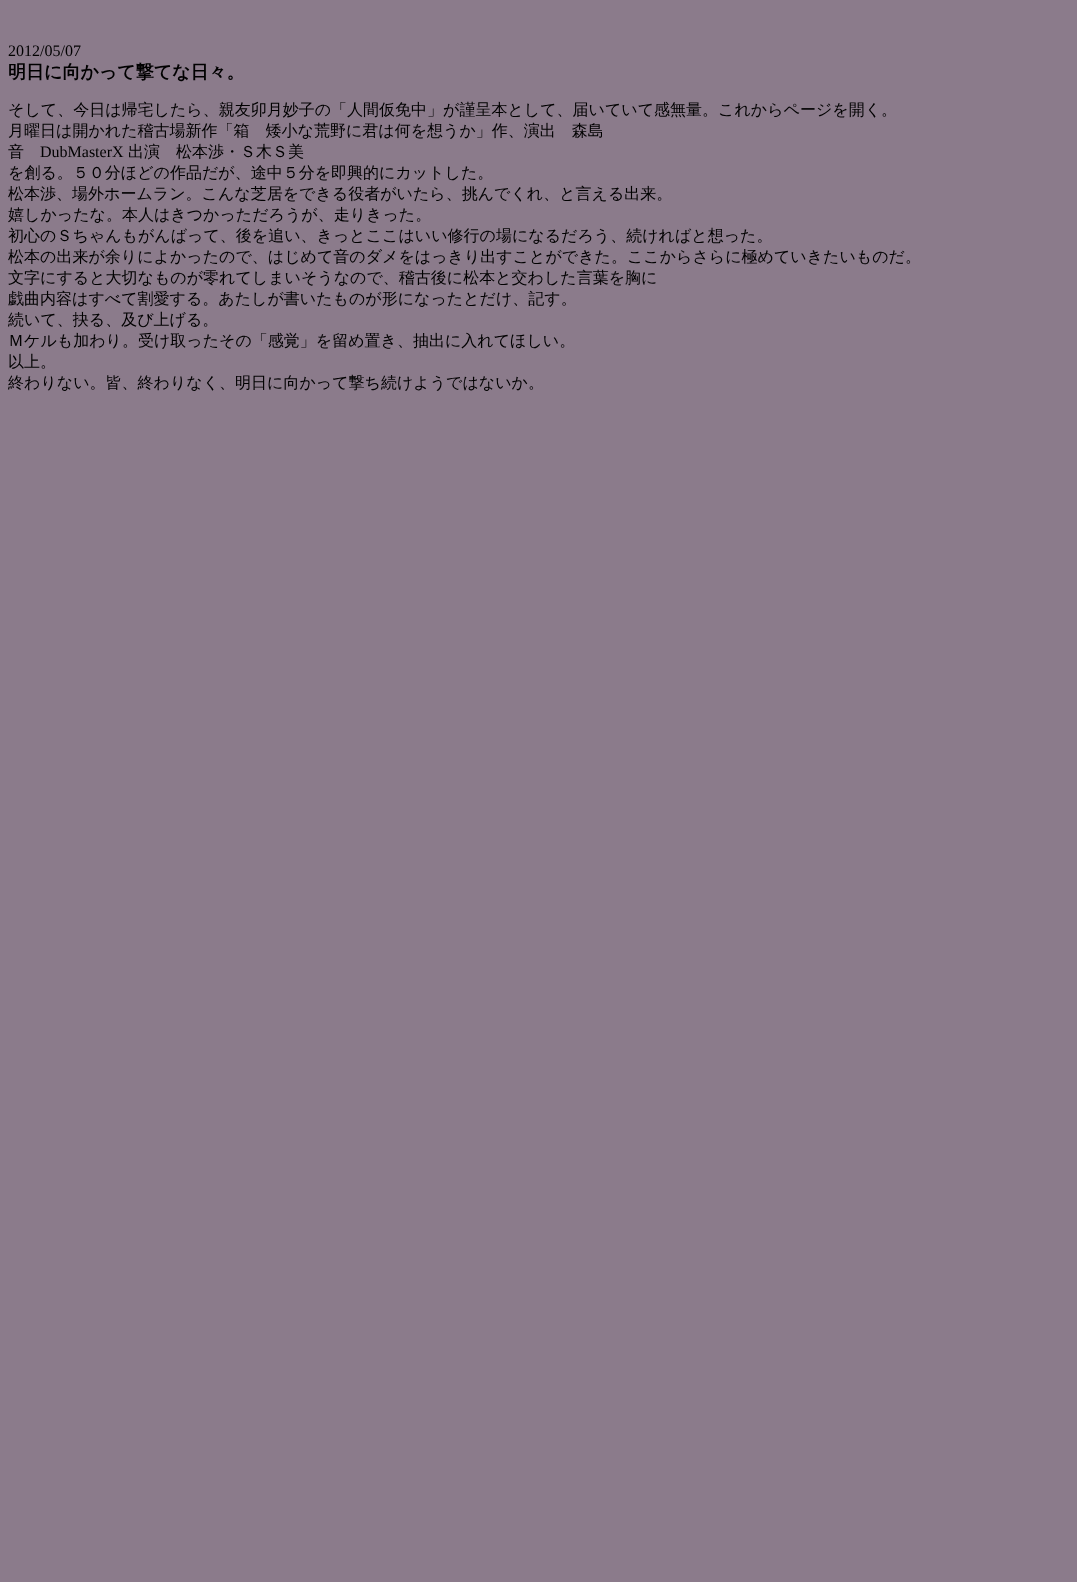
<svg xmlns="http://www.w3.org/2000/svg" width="1077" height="1582">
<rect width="100%" height="100%" fill="#8b7b8b"/>
<text x="8" y="56" style="font-family:Liberation Serif;font-size:16px;fill:#000">2012/05/07</text>
<text x="8" y="78" style="font-family:WenQuanYi Zen Hei;font-size:18px;font-weight:bold;fill:#000">明日に向かって撃てな日々。</text>
<text x="8" y="115" style="font-family:WenQuanYi Zen Hei;font-size:16px;font-weight:500;fill:#000">そして、今日は帰宅したら、親友卯月妙子の「人間仮免中」が謹呈本として、届いていて感無量。これからページを開く。</text>
<text x="8" y="136" style="font-family:WenQuanYi Zen Hei;font-size:16px;font-weight:500;fill:#000">月曜日は開かれた稽古場新作「箱　矮小な荒野に君は何を想うか」作、演出　森島</text>
<text x="8" y="157" style="font-family:WenQuanYi Zen Hei;font-size:16px;font-weight:500;fill:#000">音</text>
<text x="40" y="157" style="font-family:Liberation Serif;font-size:16px;fill:#000">DubMasterX</text>
<text x="128" y="157" style="font-family:WenQuanYi Zen Hei;font-size:16px;font-weight:500;fill:#000">出演　松本渉・Ｓ木Ｓ美</text>
<text x="8" y="178" style="font-family:WenQuanYi Zen Hei;font-size:16px;font-weight:500;fill:#000">を創る。５０分ほどの作品だが、途中５分を即興的にカットした。</text>
<text x="8" y="199" style="font-family:WenQuanYi Zen Hei;font-size:16px;font-weight:500;fill:#000">松本渉、場外ホームラン。こんな芝居をできる役者がいたら、挑んでくれ、と言える出来。</text>
<text x="8" y="220" style="font-family:WenQuanYi Zen Hei;font-size:16px;font-weight:500;fill:#000">嬉しかったな。本人はきつかっただろうが、走りきった。</text>
<text x="8" y="241" style="font-family:WenQuanYi Zen Hei;font-size:16px;font-weight:500;fill:#000">初心のＳちゃんもがんばって、後を追い、きっとここはいい修行の場になるだろう、続ければと想った。</text>
<text x="8" y="262" style="font-family:WenQuanYi Zen Hei;font-size:16px;font-weight:500;fill:#000">松本の出来が余りによかったので、はじめて音のダメをはっきり出すことができた。ここからさらに極めていきたいものだ。</text>
<text x="8" y="283" style="font-family:WenQuanYi Zen Hei;font-size:16px;font-weight:500;fill:#000">文字にすると大切なものが零れてしまいそうなので、稽古後に松本と交わした言葉を胸に</text>
<text x="8" y="304" style="font-family:WenQuanYi Zen Hei;font-size:16px;font-weight:500;fill:#000">戯曲内容はすべて割愛する。あたしが書いたものが形になったとだけ、記す。</text>
<text x="8" y="325" style="font-family:WenQuanYi Zen Hei;font-size:16px;font-weight:500;fill:#000">続いて、抉る、及び上げる。</text>
<text x="8" y="346" style="font-family:WenQuanYi Zen Hei;font-size:16px;font-weight:500;fill:#000">Ｍケルも加わり。受け取ったその「感覚」を留め置き、抽出に入れてほしい。</text>
<text x="8" y="367" style="font-family:WenQuanYi Zen Hei;font-size:16px;font-weight:500;fill:#000">以上。</text>
<text x="8" y="388" style="font-family:WenQuanYi Zen Hei;font-size:16px;font-weight:500;fill:#000">終わりない。皆、終わりなく、明日に向かって撃ち続けようではないか。</text>
</svg>
